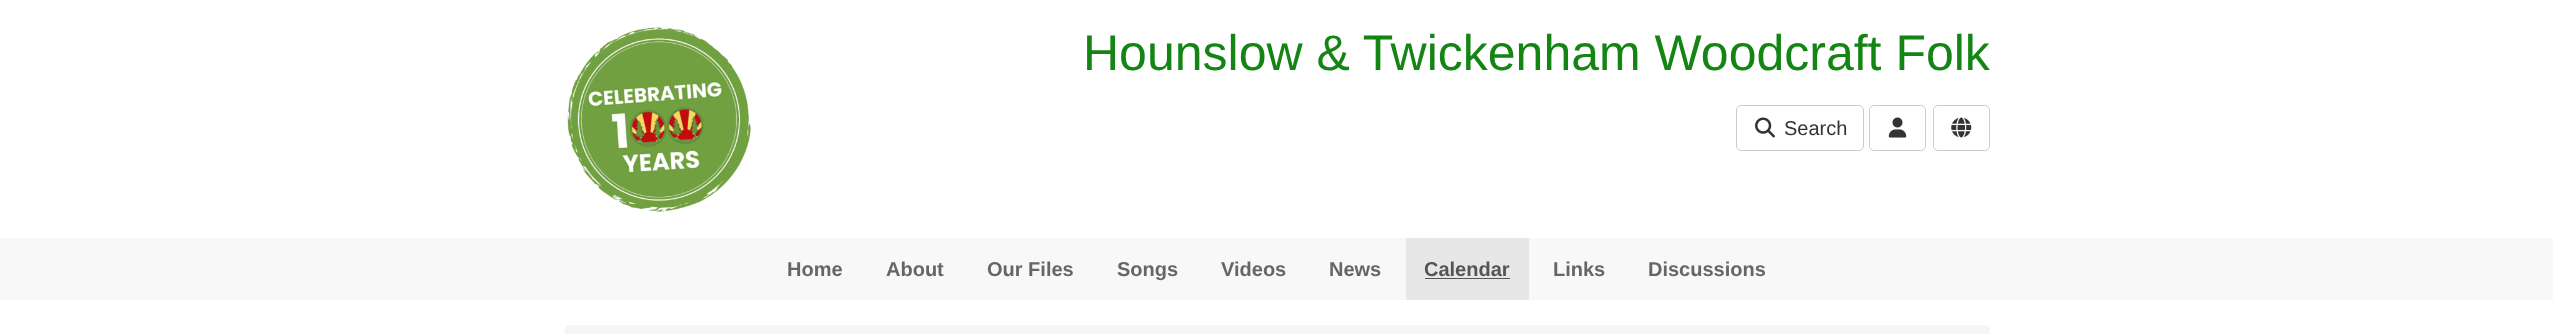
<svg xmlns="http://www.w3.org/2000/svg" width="2553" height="334">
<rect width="100%" height="100%" fill="#fff"/>
<image x="567" y="27" width="184" height="185" href="media/1.png"/>
<text x="1083" y="70" style="font-family:Liberation Sans;font-size:50px;fill:#148514">Hounslow &amp; Twickenham Woodcraft Folk</text>
<rect x="1736.5" y="105.5" width="127" height="45" rx="4.5" fill="none" stroke="#ccc"/>
<image x="1755" y="117" width="20" height="21" href="media/2.png"/>
<text x="1784" y="135" style="font-family:Liberation Sans;font-size:20px;fill:#333">Search</text>
<rect x="1869.5" y="105.5" width="56" height="45" rx="4.5" fill="none" stroke="#ccc"/>
<image x="1888" y="117" width="19" height="21" href="media/3.png"/>
<rect x="1933.5" y="105.5" width="56" height="45" rx="4.5" fill="none" stroke="#ccc"/>
<image x="1951" y="117" width="21" height="21" href="media/4.png"/>
<rect y="238" width="2553" height="62" fill="#f8f8f8"/>
<text x="787" y="276" style="font-family:Liberation Sans;font-size:20px;font-weight:bold;fill:#666">Home</text>
<text x="886" y="276" style="font-family:Liberation Sans;font-size:20px;font-weight:bold;fill:#666">About</text>
<text x="987" y="276" style="font-family:Liberation Sans;font-size:20px;font-weight:bold;fill:#666">Our Files</text>
<text x="1117" y="276" style="font-family:Liberation Sans;font-size:20px;font-weight:bold;fill:#666">Songs</text>
<text x="1221" y="276" style="font-family:Liberation Sans;font-size:20px;font-weight:bold;fill:#666">Videos</text>
<text x="1329" y="276" style="font-family:Liberation Sans;font-size:20px;font-weight:bold;fill:#666">News</text>
<rect x="1406" y="238" width="123" height="62" fill="#e7e7e7"/>
<text x="1424" y="276" style="font-family:Liberation Sans;font-size:20px;font-weight:bold;fill:#555">Calendar</text>
<rect x="1425" y="278" width="85" height="1" fill="#555"/>
<text x="1553" y="276" style="font-family:Liberation Sans;font-size:20px;font-weight:bold;fill:#666">Links</text>
<text x="1648" y="276" style="font-family:Liberation Sans;font-size:20px;font-weight:bold;fill:#666">Discussions</text>
<rect x="565" y="325" width="1425" height="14" rx="5" fill="#f5f5f5"/>
</svg>
